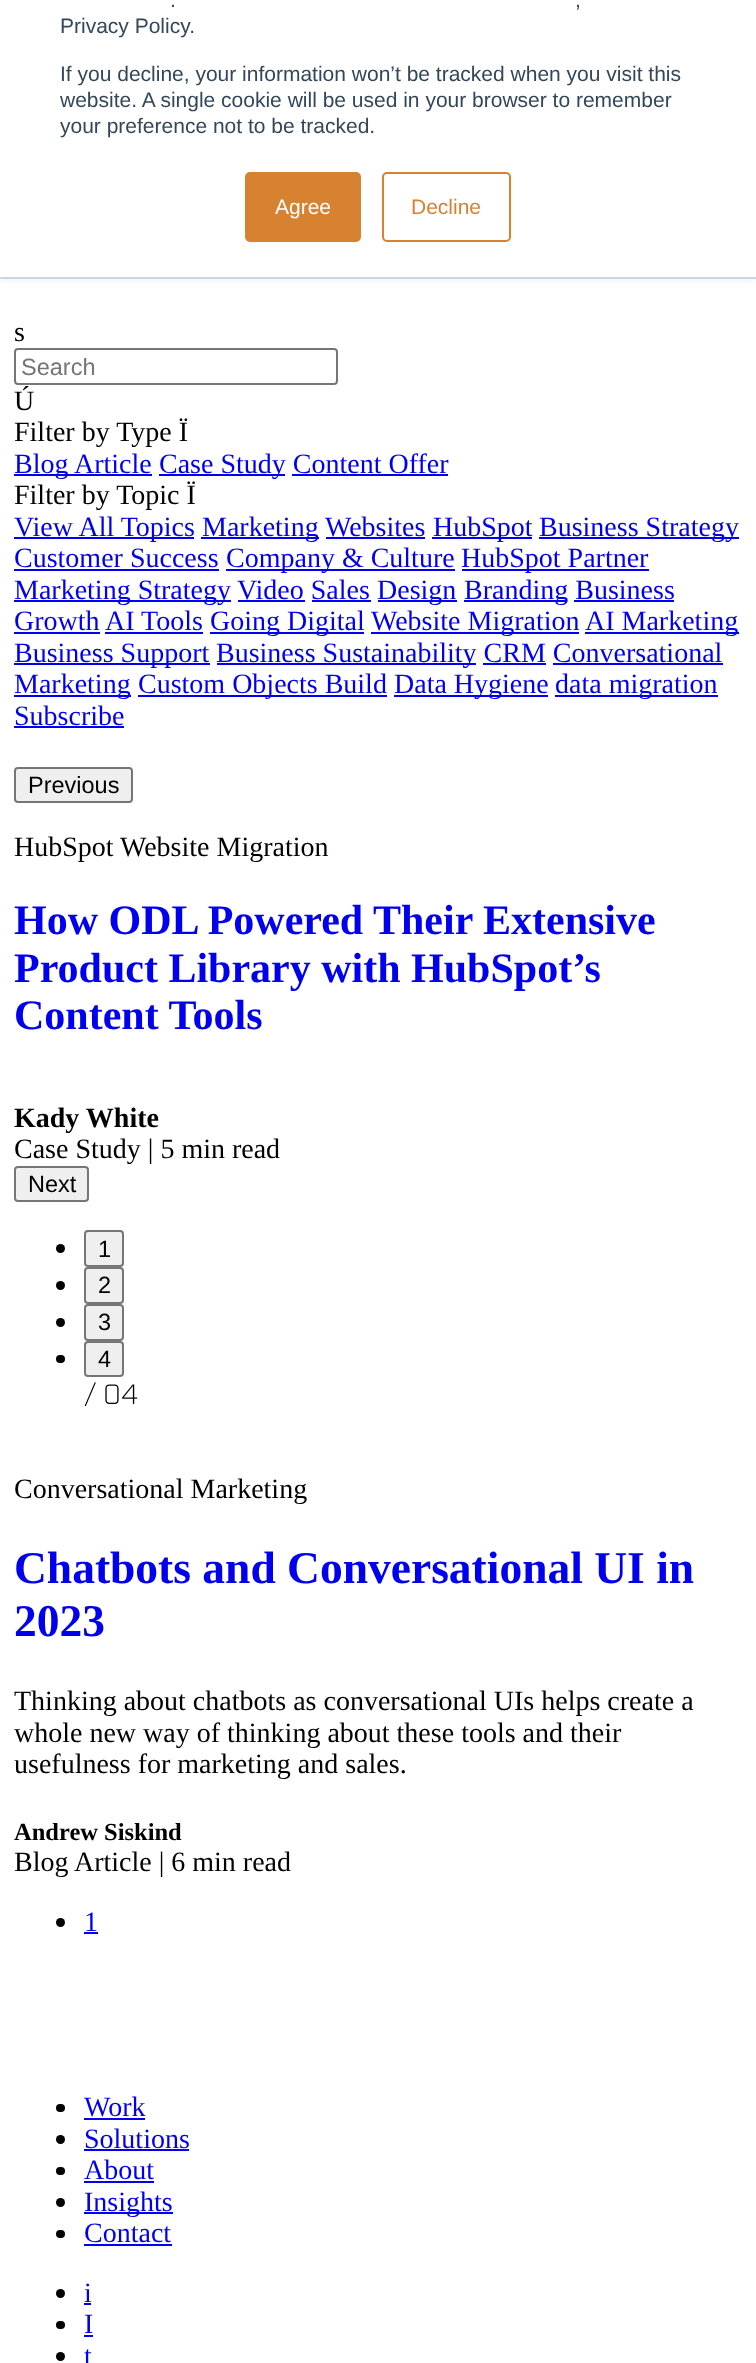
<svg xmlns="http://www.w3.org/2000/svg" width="756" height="2363">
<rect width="100%" height="100%" fill="#fff"/>
<rect y="-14" width="756" height="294" fill="#eaf0f6" filter="blur(4.5px)"/>
<rect width="756" height="277" fill="#fff"/>
<rect y="277" width="756" height="2" fill="#cbd6e2"/>
<text x="170" y="7" style="font-family:Liberation Sans;font-size:21px;fill:#33475b">.</text>
<text x="575" y="7" style="font-family:Liberation Sans;font-size:21px;fill:#33475b">,</text>
<text x="60" y="33" style="font-family:Liberation Sans;font-size:21px;fill:#33475b">Privacy Policy.</text>
<text x="60" y="81" style="font-family:Liberation Sans;font-size:21px;fill:#33475b">If you decline, your information won’t be tracked when you visit this</text>
<text x="60" y="107" style="font-family:Liberation Sans;font-size:21px;fill:#33475b">website. A single cookie will be used in your browser to remember</text>
<text x="60" y="133" style="font-family:Liberation Sans;font-size:21px;fill:#33475b">your preference not to be tracked.</text>
<rect x="246" y="173" width="114" height="68" rx="4" fill="#d68231" stroke="#d68231" stroke-width="2"/>
<text x="275" y="214" style="font-family:Liberation Sans;font-size:21px;fill:#fff">Agree</text>
<rect x="383" y="173" width="127" height="68" rx="4" fill="none" stroke="#d68231" stroke-width="2"/>
<text x="411" y="214" style="font-family:Liberation Sans;font-size:21px;fill:#d68231">Decline</text>
<text x="14" y="341" style="font-family:Liberation Serif;font-size:28px;fill:#000">s</text>
<rect x="15" y="349" width="322" height="35" rx="3" fill="none" stroke="#767676" stroke-width="2"/>
<text x="21" y="375" style="font-family:Liberation Sans;font-size:23.5px;fill:#757575">Search</text>
<text x="14" y="410" style="font-family:Liberation Serif;font-size:28px;fill:#000">Ú</text>
<text x="14" y="441" style="font-family:Liberation Serif;font-size:28px;fill:#000">Filter by Type Ï</text>
<rect x="14" y="474" width="138" height="2" fill="#00e"/>
<text x="14" y="473" style="font-family:Liberation Serif;font-size:28px;fill:#00e">Blog Article</text>
<rect x="159" y="474" width="126" height="2" fill="#00e"/>
<text x="159" y="473" style="font-family:Liberation Serif;font-size:28px;fill:#00e">Case Study Content Offer</text>
<rect x="292" y="474" width="156" height="2" fill="#00e"/>
<text x="14" y="504" style="font-family:Liberation Serif;font-size:28px;fill:#000">Filter by Topic Ï</text>
<rect x="14" y="537" width="180" height="2" fill="#00e"/>
<text x="14" y="536" style="font-family:Liberation Serif;font-size:28px;fill:#00e">View All Topics</text>
<rect x="201" y="537" width="118" height="2" fill="#00e"/>
<text x="202" y="536" style="font-family:Liberation Serif;font-size:28px;fill:#00e">Marketing</text>
<text x="325" y="536" style="font-family:Liberation Serif;font-size:28px;fill:#00e">Websites</text>
<rect x="326" y="537" width="99" height="2" fill="#00e"/>
<rect x="432" y="537" width="100" height="2" fill="#00e"/>
<text x="433" y="536" style="font-family:Liberation Serif;font-size:28px;fill:#00e">HubSpot</text>
<rect x="539" y="537" width="200" height="2" fill="#00e"/>
<text x="539" y="536" style="font-family:Liberation Serif;font-size:28px;fill:#00e">Business Strategy</text>
<text x="14" y="567" style="font-family:Liberation Serif;font-size:28px;fill:#00e">Customer Success</text>
<rect x="14" y="569" width="205" height="2" fill="#00e"/>
<rect x="226" y="569" width="229" height="2" fill="#00e"/>
<text x="226" y="567" style="font-family:Liberation Serif;font-size:28px;fill:#00e">Company &amp; Culture</text>
<rect x="462" y="569" width="187" height="2" fill="#00e"/>
<text x="461" y="567" style="font-family:Liberation Serif;font-size:28px;fill:#00e">HubSpot Partner</text>
<rect x="14" y="600" width="217" height="2" fill="#00e"/>
<text x="14" y="599" style="font-family:Liberation Serif;font-size:28px;fill:#00e">Marketing Strategy</text>
<text x="237" y="599" style="font-family:Liberation Serif;font-size:28px;fill:#00e">Video Sales</text>
<rect x="238" y="600" width="67" height="2" fill="#00e"/>
<rect x="378" y="600" width="79" height="2" fill="#00e"/>
<text x="377" y="599" style="font-family:Liberation Serif;font-size:28px;fill:#00e">Design</text>
<rect x="464" y="600" width="103" height="2" fill="#00e"/>
<text x="464" y="599" style="font-family:Liberation Serif;font-size:28px;fill:#00e">Branding Business</text>
<rect x="312" y="600" width="59" height="2" fill="#00e"/>
<text x="14" y="630" style="font-family:Liberation Serif;font-size:28px;fill:#00e">Growth</text>
<rect x="574" y="600" width="100" height="2" fill="#00e"/>
<rect x="14" y="632" width="86" height="2" fill="#00e"/>
<text x="105" y="630" style="font-family:Liberation Serif;font-size:28px;fill:#00e">AI Tools</text>
<rect x="105" y="632" width="98" height="2" fill="#00e"/>
<rect x="210" y="632" width="154" height="2" fill="#00e"/>
<text x="210" y="630" style="font-family:Liberation Serif;font-size:28px;fill:#00e">Going Digital</text>
<rect x="371" y="632" width="208" height="2" fill="#00e"/>
<text x="371" y="630" style="font-family:Liberation Serif;font-size:28px;fill:#00e">Website Migration</text>
<rect x="585" y="632" width="154" height="2" fill="#00e"/>
<text x="585" y="630" style="font-family:Liberation Serif;font-size:28px;fill:#00e">AI Marketing</text>
<rect x="14" y="663" width="196" height="2" fill="#00e"/>
<text x="14" y="662" style="font-family:Liberation Serif;font-size:28px;fill:#00e">Business Support</text>
<rect x="217" y="663" width="259" height="2" fill="#00e"/>
<text x="216" y="662" style="font-family:Liberation Serif;font-size:28px;fill:#00e">Business Sustainability CRM Conversational</text>
<rect x="483" y="663" width="63" height="2" fill="#00e"/>
<rect x="14" y="695" width="117" height="2" fill="#00e"/>
<text x="14" y="693" style="font-family:Liberation Serif;font-size:28px;fill:#00e">Marketing</text>
<rect x="553" y="663" width="170" height="2" fill="#00e"/>
<rect x="138" y="695" width="249" height="2" fill="#00e"/>
<text x="138" y="693" style="font-family:Liberation Serif;font-size:28px;fill:#00e">Custom Objects Build</text>
<rect x="394" y="695" width="154" height="2" fill="#00e"/>
<text x="394" y="693" style="font-family:Liberation Serif;font-size:28px;fill:#00e">Data Hygiene</text>
<rect x="555" y="695" width="163" height="2" fill="#00e"/>
<text x="555" y="693" style="font-family:Liberation Serif;font-size:28px;fill:#00e">data migration</text>
<text x="14" y="725" style="font-family:Liberation Serif;font-size:28px;fill:#00e">Subscribe</text>
<rect x="14" y="726" width="110" height="2" fill="#00e"/>
<rect x="15" y="768" width="117" height="34" rx="3" fill="#efefef" stroke="#767676" stroke-width="2"/>
<text x="28" y="793" style="font-family:Liberation Sans;font-size:23.5px;fill:#000">Previous</text>
<text x="14" y="856" style="font-family:Liberation Serif;font-size:28px;fill:#000">HubSpot</text>
<text x="120" y="856" style="font-family:Liberation Serif;font-size:28px;fill:#000">Website Migration</text>
<text x="14" y="934" style="font-family:Liberation Serif;font-size:42px;font-weight:bold;fill:#00e">How ODL Powered Their Extensive</text>
<text x="14" y="982" style="font-family:Liberation Serif;font-size:42px;font-weight:bold;fill:#00e">Product Library with HubSpot’s</text>
<text x="14" y="1029" style="font-family:Liberation Serif;font-size:42px;font-weight:bold;fill:#00e">Content Tools</text>
<text x="14" y="1127" style="font-family:Liberation Serif;font-size:28px;font-weight:bold;fill:#000">Kady White</text>
<text x="14" y="1158" style="font-family:Liberation Serif;font-size:28px;fill:#000">Case Study | 5 min read</text>
<rect x="15" y="1167" width="73" height="34" rx="3" fill="#efefef" stroke="#767676" stroke-width="2"/>
<text x="28" y="1192" style="font-family:Liberation Sans;font-size:23.5px;fill:#000">Next</text>
<circle cx="60.5" cy="1248.5" r="4.5" fill="#000"/>
<rect x="85" y="1231" width="38" height="35" rx="3" fill="#efefef" stroke="#767676" stroke-width="2"/>
<text x="98" y="1257" style="font-family:Liberation Sans;font-size:23.5px;fill:#000">1</text>
<circle cx="60.5" cy="1285.5" r="4.5" fill="#000"/>
<rect x="85" y="1268" width="38" height="35" rx="3" fill="#efefef" stroke="#767676" stroke-width="2"/>
<text x="98" y="1293" style="font-family:Liberation Sans;font-size:23.5px;fill:#000">2</text>
<circle cx="60.5" cy="1322.5" r="4.5" fill="#000"/>
<rect x="85" y="1305" width="38" height="35" rx="3" fill="#efefef" stroke="#767676" stroke-width="2"/>
<text x="98" y="1330" style="font-family:Liberation Sans;font-size:23.5px;fill:#000">3</text>
<rect x="56" y="1355" width="9" height="8" rx="4" fill="#000"/>
<rect x="85" y="1342" width="38" height="34" rx="3" fill="#efefef" stroke="#767676" stroke-width="2"/>
<text x="98" y="1367" style="font-family:Liberation Sans;font-size:23.5px;fill:#000">4</text>
<text x="84" y="1404" style="font-family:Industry;font-size:28px;font-weight:300;fill:#000">/ 04</text>
<text x="14" y="1498" style="font-family:Liberation Serif;font-size:28px;fill:#000">Conversational Marketing</text>
<text x="14" y="1583" style="font-family:Liberation Serif;font-size:45.5px;font-weight:bold;fill:#00e">Chatbots and Conversational UI in</text>
<text x="14" y="1636" style="font-family:Liberation Serif;font-size:45.5px;font-weight:bold;fill:#00e">2023</text>
<text x="14" y="1710" style="font-family:Liberation Serif;font-size:28px;fill:#000">Thinking about chatbots as conversational UIs helps create a</text>
<text x="14" y="1742" style="font-family:Liberation Serif;font-size:28px;fill:#000">whole new way of thinking about these tools and their</text>
<text x="14" y="1773" style="font-family:Liberation Serif;font-size:28px;fill:#000">usefulness for marketing and sales.</text>
<text x="14" y="1840" style="font-family:Liberation Serif;font-size:24.5px;font-weight:bold;fill:#000">Andrew Siskind</text>
<text x="14" y="1871" style="font-family:Liberation Serif;font-size:28px;fill:#000">Blog Article | 6 min read</text>
<circle cx="60.5" cy="1922.5" r="4.5" fill="#000"/>
<text x="84" y="1931" style="font-family:Liberation Serif;font-size:28px;fill:#00e">1</text>
<rect x="84" y="1932" width="14" height="2" fill="#00e"/>
<rect x="56" y="2104" width="9" height="8" rx="4" fill="#000"/>
<text x="84" y="2116" style="font-family:Liberation Serif;font-size:28px;fill:#00e">Work</text>
<rect x="84" y="2118" width="61" height="2" fill="#00e"/>
<circle cx="60.5" cy="2139.5" r="4.5" fill="#000"/>
<text x="84" y="2148" style="font-family:Liberation Serif;font-size:28px;fill:#00e">Solutions</text>
<rect x="84" y="2149" width="105" height="2" fill="#00e"/>
<rect x="56" y="2167" width="9" height="8" rx="4" fill="#000"/>
<text x="84" y="2179" style="font-family:Liberation Serif;font-size:28px;fill:#00e">About</text>
<rect x="84" y="2181" width="70" height="2" fill="#00e"/>
<circle cx="60.5" cy="2202.5" r="4.5" fill="#000"/>
<rect x="84" y="2212" width="89" height="2" fill="#00e"/>
<text x="84" y="2211" style="font-family:Liberation Serif;font-size:28px;fill:#00e">Insights</text>
<rect x="56" y="2230" width="9" height="8" rx="4" fill="#000"/>
<text x="84" y="2242" style="font-family:Liberation Serif;font-size:28px;fill:#00e">Contact</text>
<rect x="84" y="2244" width="88" height="2" fill="#00e"/>
<circle cx="60.5" cy="2293.5" r="4.5" fill="#000"/>
<text x="84" y="2302" style="font-family:Liberation Serif;font-size:28px;fill:#00e">i</text>
<rect x="84" y="2303" width="7" height="2" fill="#00e"/>
<rect x="56" y="2321" width="9" height="8" rx="4" fill="#000"/>
<text x="84" y="2333" style="font-family:Liberation Serif;font-size:28px;fill:#00e">I</text>
<rect x="84" y="2335" width="9" height="2" fill="#00e"/>
<circle cx="60.5" cy="2356.5" r="4.5" fill="#000"/>
<text x="84" y="2365" style="font-family:Liberation Serif;font-size:28px;fill:#00e">t</text>
</svg>
